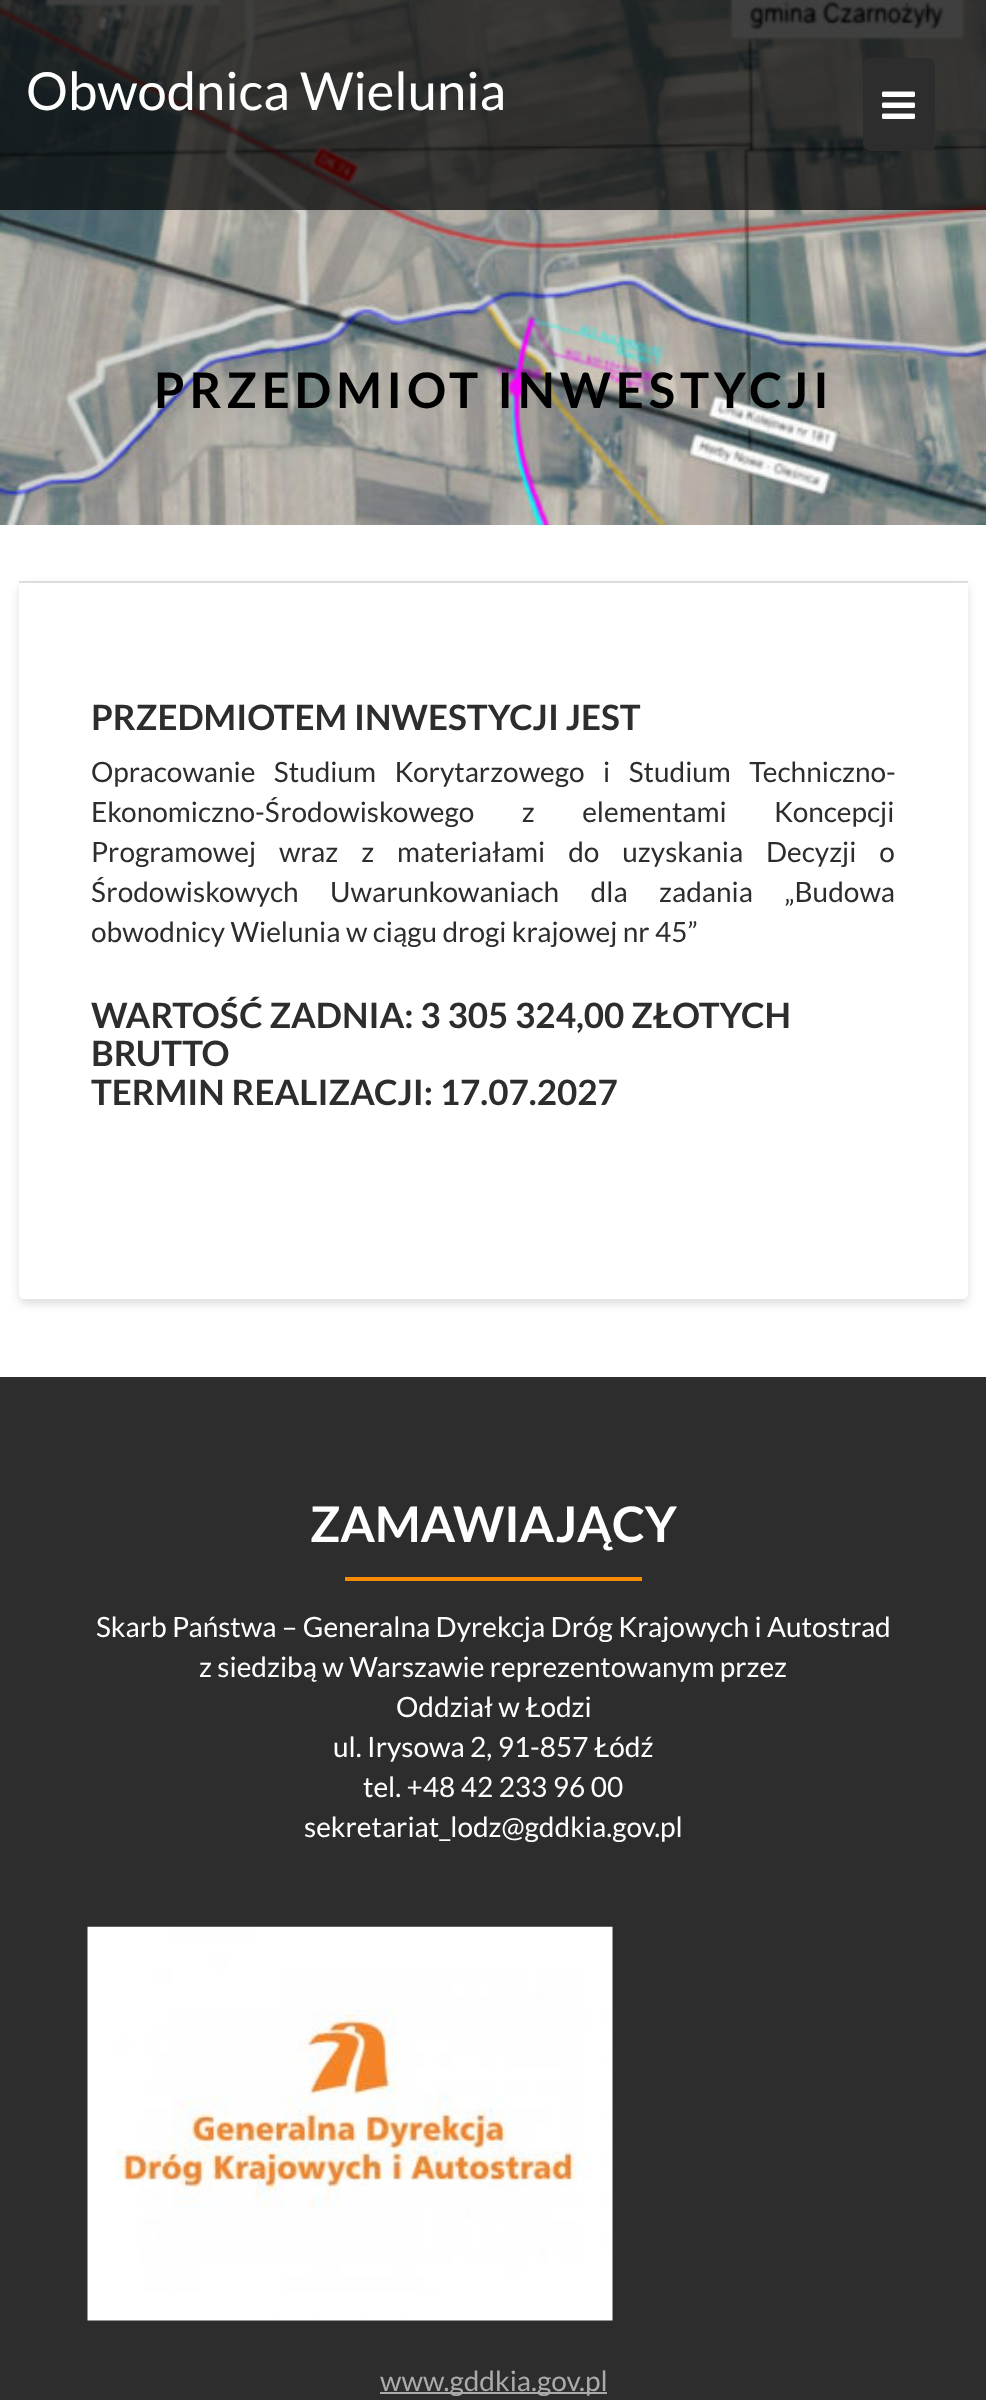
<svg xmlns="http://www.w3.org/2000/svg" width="986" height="2400">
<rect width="100%" height="100%" fill="#fff"/>
<image x="0" y="0" width="986" height="525" href="media/2.png"/>
<rect width="986" height="210" fill="#000000b3"/>
<text x="26" y="110" style="font-family:Lato;font-size:52.5px;fill:#fff">Obwodnica Wielunia</text>
<rect x="863" y="58" width="72" height="93" rx="7" fill="#2d2d2d"/>
<image x="882" y="91" width="33" height="28" href="media/1.png"/>
<text x="154" y="408" style="font-family:Lato;font-size:49px;font-weight:bold;letter-spacing:4.9px;fill:#000">PRZEDMIOT INWESTYCJI</text>
<rect x="19" y="585" width="949" height="719" rx="7" fill="#00000021" filter="blur(5px)"/>
<rect x="19" y="581" width="949" height="719" rx="7" fill="#fff"/>
<rect x="23" y="1299" width="941" height="2" fill="#e5e5e5"/>
<rect x="19" y="581" width="949" height="2" fill="#ddd"/>
<text x="91" y="730" style="font-family:Lato;font-size:35px;font-weight:bold;fill:#2d2d2d">PRZEDMIOTEM INWESTYCJI JEST</text>
<text x="91" y="782" word-spacing="13" style="font-family:Lato;font-size:28px;fill:#2d2d2d">Opracowanie Studium Korytarzowego i Studium Techniczno-</text>
<text x="91" y="822" word-spacing="42" style="font-family:Lato;font-size:28px;fill:#2d2d2d">Ekonomiczno-Środowiskowego z elementami Koncepcji</text>
<text x="91" y="862" word-spacing="17.5" style="font-family:Lato;font-size:28px;fill:#2d2d2d">Programowej wraz z materiałami do uzyskania Decyzji o</text>
<text x="91" y="902" word-spacing="26" style="font-family:Lato;font-size:28px;fill:#2d2d2d">Środowiskowych Uwarunkowaniach dla zadania „Budowa</text>
<text x="91" y="942" style="font-family:Lato;font-size:28px;fill:#2d2d2d">obwodnicy Wielunia w ciągu drogi krajowej nr 45”</text>
<text x="91" y="1028" style="font-family:Lato;font-size:35px;font-weight:bold;fill:#2d2d2d">WARTOŚĆ ZADNIA: 3 305 324,00 ZŁOTYCH</text>
<text x="91" y="1066" style="font-family:Lato;font-size:35px;font-weight:bold;fill:#2d2d2d">BRUTTO</text>
<text x="91" y="1105" style="font-family:Lato;font-size:35px;font-weight:bold;fill:#2d2d2d">TERMIN REALIZACJI: 17.07.2027</text>
<rect y="1377" width="986" height="1023" fill="#2d2d2d"/>
<text x="310" y="1542" style="font-family:Lato;font-size:49px;font-weight:bold;fill:#fff">ZAMAWIAJĄCY</text>
<rect x="345" y="1577" width="297" height="4" fill="#f88c00"/>
<text x="96" y="1637" style="font-family:Lato;font-size:28px;fill:#fff">Skarb Państwa – Generalna Dyrekcja Dróg Krajowych i Autostrad</text>
<text x="199" y="1677" style="font-family:Lato;font-size:28px;fill:#fff">z siedzibą w Warszawie reprezentowanym przez</text>
<text x="396" y="1717" style="font-family:Lato;font-size:28px;fill:#fff">Oddział w Łodzi</text>
<text x="333" y="1757" style="font-family:Lato;font-size:28px;fill:#fff">ul. Irysowa 2, 91-857 Łódź</text>
<text x="363" y="1797" style="font-family:Lato;font-size:28px;fill:#fff">tel. +48 42 233 96 00</text>
<text x="304" y="1837" style="font-family:Lato;font-size:28px;fill:#fff">sekretariat_lodz@gddkia.gov.pl</text>
<image x="87" y="1926" width="526" height="395" href="media/3.png"/>
<rect x="380" y="2392" width="227" height="2" fill="#aaa"/>
<text x="380" y="2391" style="font-family:Lato;font-size:28px;fill:#aaa">www.gddkia.gov.pl</text>
</svg>
